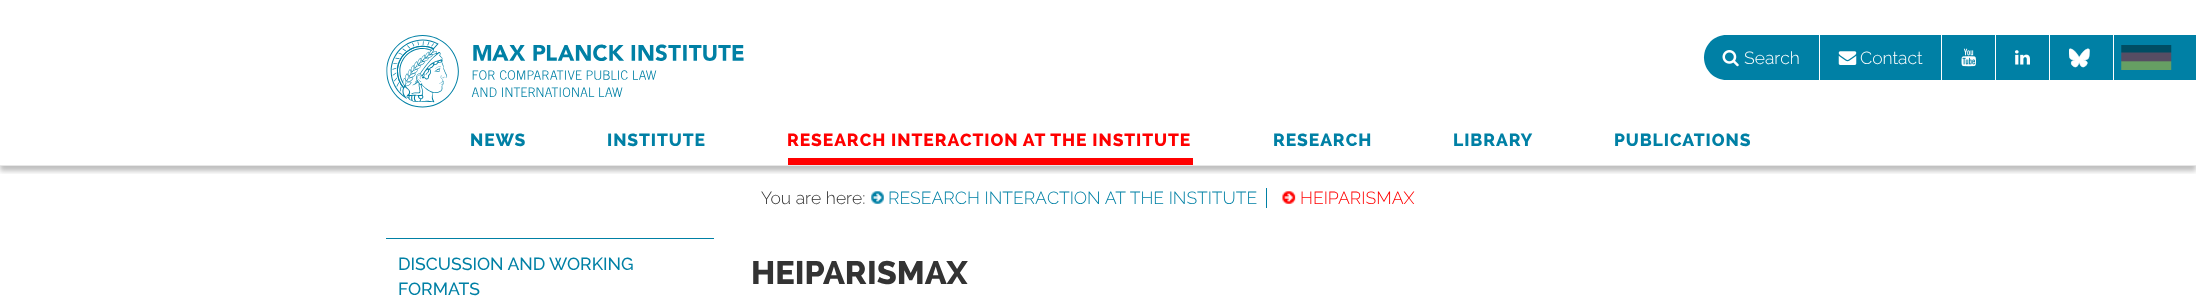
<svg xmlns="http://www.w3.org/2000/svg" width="2196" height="307">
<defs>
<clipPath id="clip1"><rect x="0" y="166" width="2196" height="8"/></clipPath>
</defs>
<rect width="100%" height="100%" fill="#fff"/>
<g clip-path="url(#clip1)">
<rect y="5" width="2196" height="166" fill="#00000040" filter="blur(2.5px)"/>
</g>
<rect y="165" width="2196" height="1" fill="#e7e7e7"/>
<image x="386" y="35" width="358" height="73" href="media/1.png"/>
<path d="M1726.5 35h469.5v45h-469.5c-12.5 0-22.5-10-22.5-22.5c0-12.5 10-22.5 22.5-22.5z" fill="#0080a5"/>
<rect x="1819" y="35" width="1" height="45" fill="#fff"/>
<image x="1722" y="50" width="17" height="17" href="media/2.png"/>
<text x="1744" y="64" style="font-family:Raleway;font-size:17.5px;font-weight:300;fill:#fff">Search</text>
<rect x="1941" y="35" width="1" height="45" fill="#fff"/>
<image x="1838" y="51" width="19" height="14" href="media/3.png"/>
<text x="1860" y="64" style="font-family:Raleway;font-size:17.5px;font-weight:300;fill:#fff">Contact</text>
<rect x="1995" y="35" width="1" height="45" fill="#fff"/>
<image x="1961" y="48" width="15" height="19" href="media/4.png"/>
<rect x="2049" y="35" width="1" height="45" fill="#fff"/>
<image x="2015" y="50" width="15" height="15" href="media/5.png"/>
<rect x="2113" y="35" width="1" height="45" fill="#fff"/>
<image x="2069" y="48" width="21" height="20" href="media/6.png"/>
<image x="2121" y="45" width="51" height="25" href="media/7.png"/>
<text x="470" y="146" style="font-family:Raleway;font-size:17.5px;font-weight:800;letter-spacing:0.9px;fill:#0080a5">NEWS</text>
<text x="607" y="146" style="font-family:Raleway;font-size:17.5px;font-weight:800;letter-spacing:0.9px;fill:#0080a5">INSTITUTE</text>
<rect x="788" y="158" width="405" height="7" fill="#f00"/>
<text x="787" y="146" style="font-family:Raleway;font-size:17.5px;font-weight:800;letter-spacing:0.9px;fill:#f00">RESEARCH INTERACTION AT THE INSTITUTE</text>
<text x="1273" y="146" style="font-family:Raleway;font-size:17.5px;font-weight:800;letter-spacing:0.9px;fill:#0080a5">RESEARCH</text>
<text x="1453" y="146" style="font-family:Raleway;font-size:17.5px;font-weight:800;letter-spacing:0.9px;fill:#0080a5">LIBRARY</text>
<text x="1614" y="146" style="font-family:Raleway;font-size:17.5px;font-weight:800;letter-spacing:0.9px;fill:#0080a5">PUBLICATIONS</text>
<text x="761" y="204" style="font-family:Raleway;font-size:17.5px;font-weight:300;fill:#333">You are here:</text>
<image x="871" y="191" width="13" height="13" href="media/8.png"/>
<text x="888" y="204" style="font-family:Raleway;font-size:17.5px;font-weight:300;fill:#0080a5">RESEARCH INTERACTION AT THE INSTITUTE</text>
<rect x="1266" y="188" width="1" height="20" fill="#0080a5"/>
<image x="1282" y="191" width="14" height="13" href="media/9.png"/>
<text x="1300" y="204" style="font-family:Raleway;font-size:17.5px;font-weight:300;fill:#f00">HEIPARISMAX</text>
<rect x="386" y="238" width="328" height="1" fill="#0080a5"/>
<text x="398" y="270" style="font-family:Raleway;font-size:17.5px;font-weight:500;fill:#0080a5">DISCUSSION AND WORKING</text>
<text x="398" y="295" style="font-family:Raleway;font-size:17.5px;font-weight:500;fill:#0080a5">FORMATS</text>
<text x="751" y="284" style="font-family:Raleway;font-size:32.5px;font-weight:800;fill:#333">HEIPARISMAX</text>
</svg>
